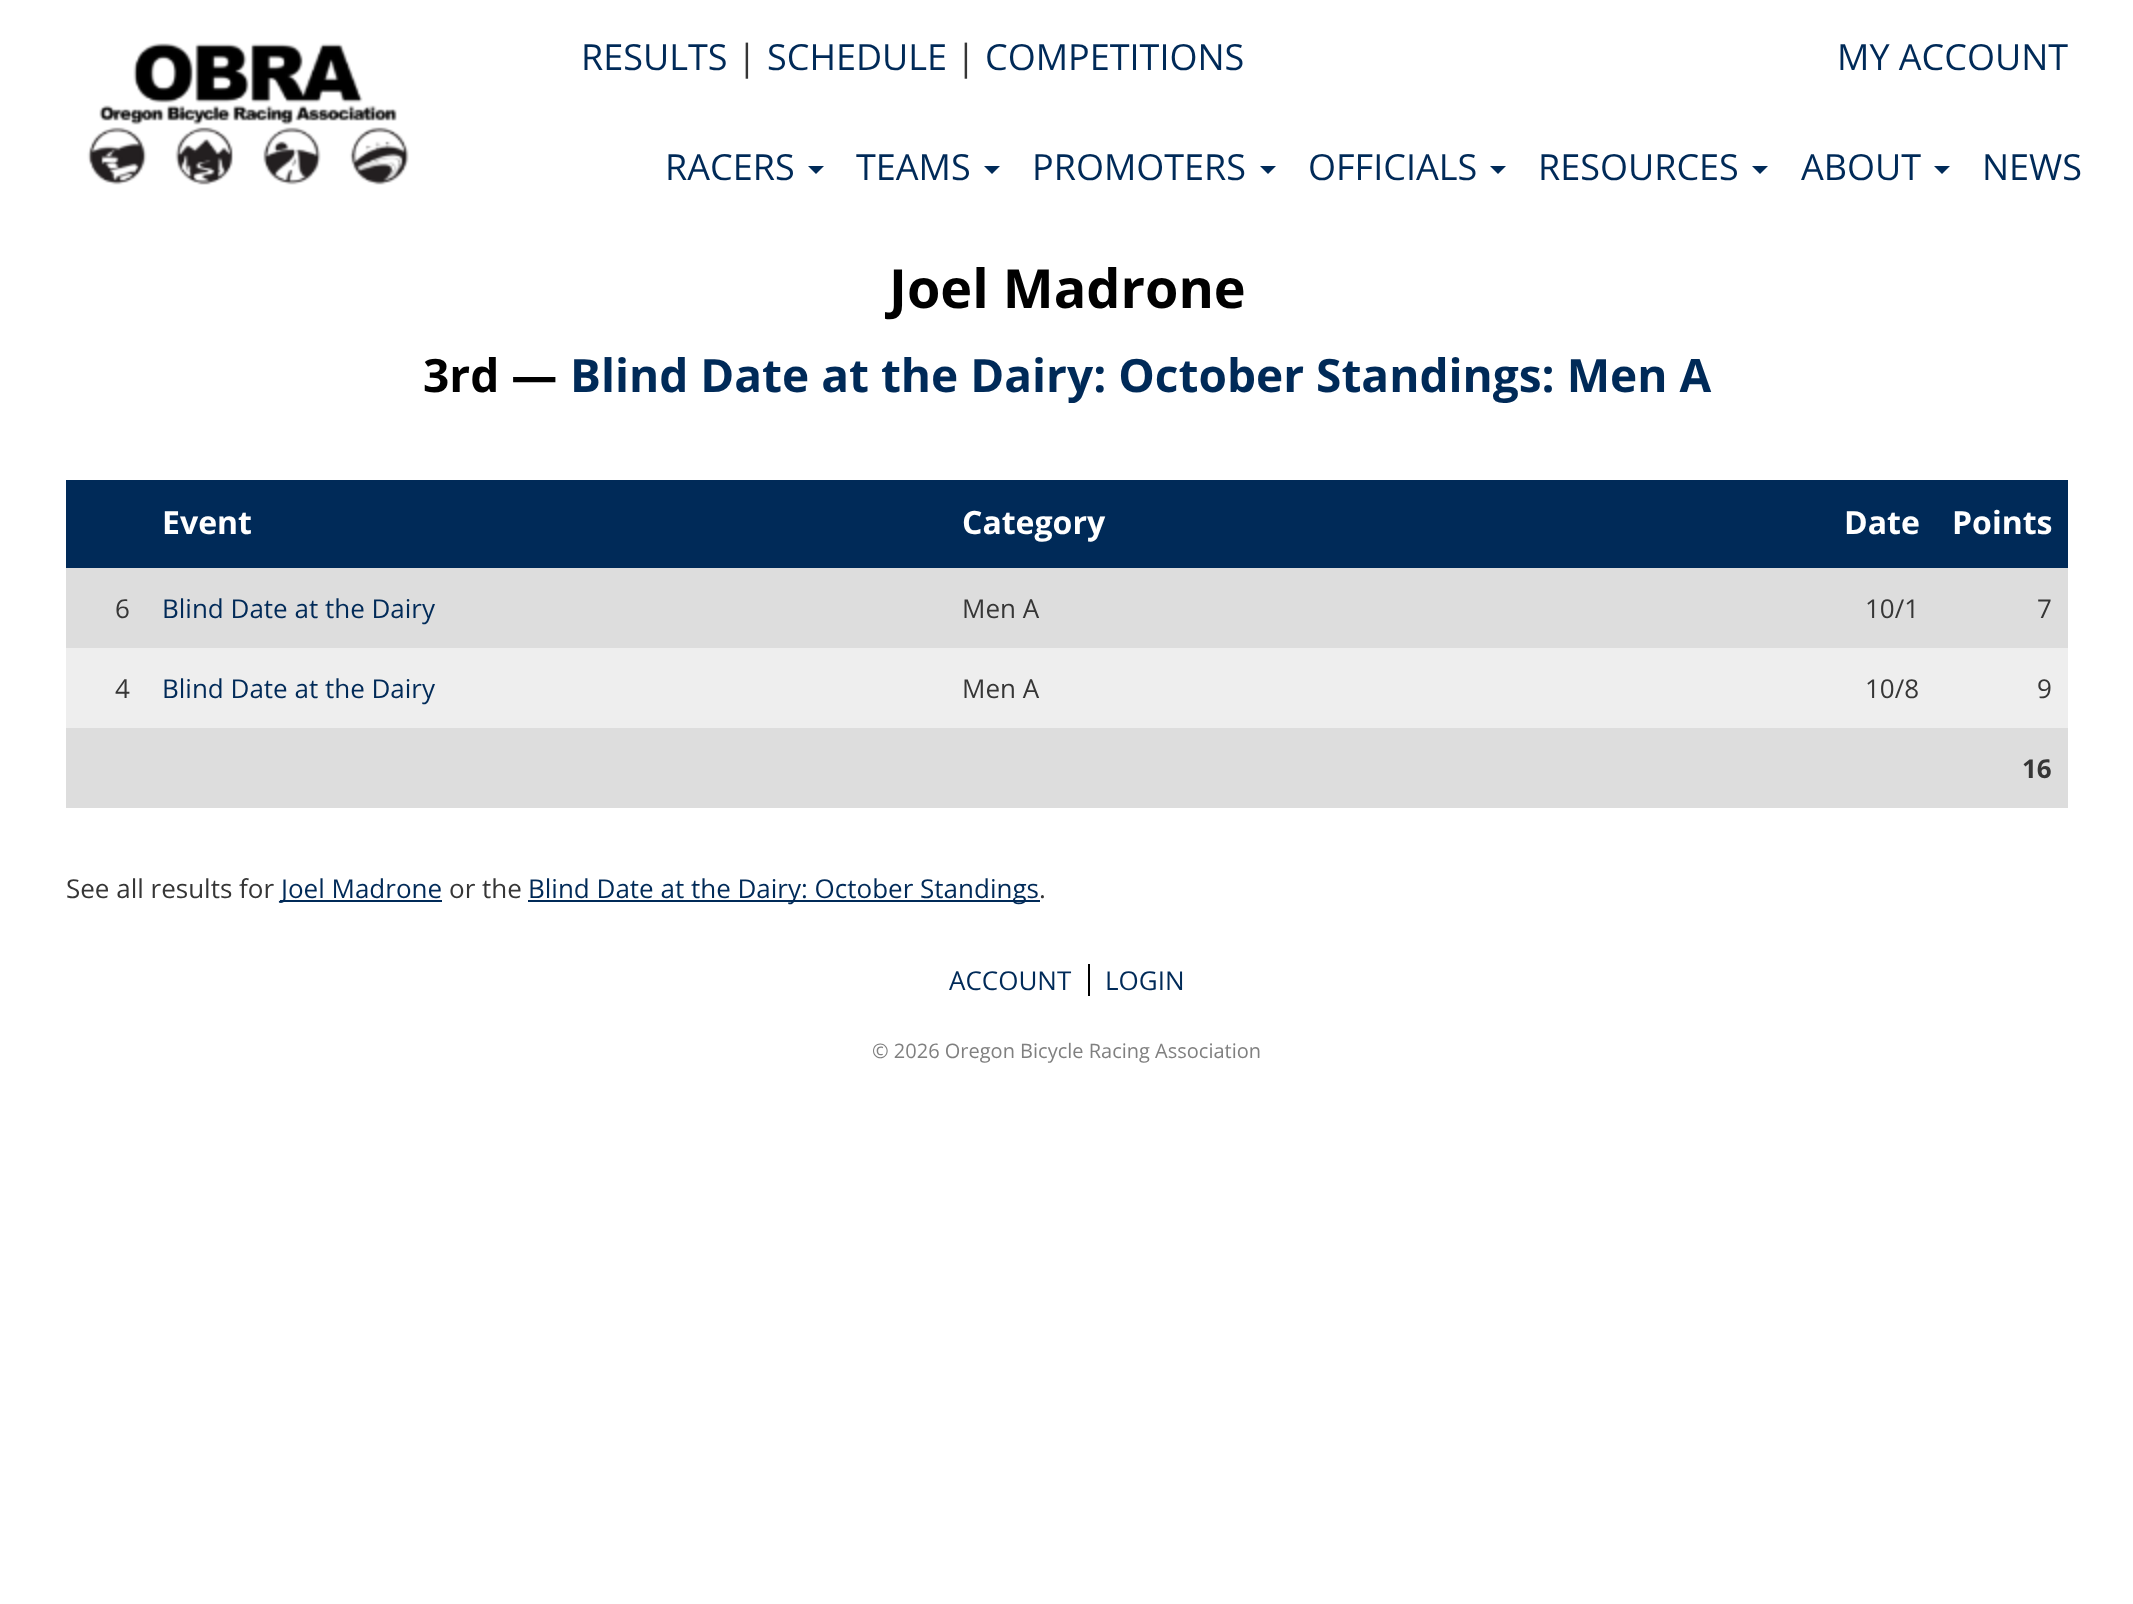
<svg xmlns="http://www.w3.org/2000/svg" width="2133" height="1604">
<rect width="100%" height="100%" fill="#fff"/>
<image x="87" y="43" width="322" height="142" href="media/1.png"/>
<text x="581" y="70" style="font-family:Open Sans;font-size:36px;fill:#002a58">RESULTS</text>
<text x="737" y="70" style="font-family:Open Sans;font-size:36px;fill:#363636">|</text>
<text x="767" y="70" style="font-family:Open Sans;font-size:36px;fill:#002a58">SCHEDULE</text>
<text x="956" y="70" style="font-family:Open Sans;font-size:36px;fill:#363636">|</text>
<text x="985" y="70" style="font-family:Open Sans;font-size:36px;fill:#002a58">COMPETITIONS</text>
<text x="1837" y="70" style="font-family:Open Sans;font-size:36px;fill:#002a58">MY ACCOUNT</text>
<text x="665" y="180" style="font-family:Open Sans;font-size:36px;fill:#002a58">RACERS</text>
<path d="M808 166h16l-8 8z" fill="#002a58"/>
<text x="856" y="180" style="font-family:Open Sans;font-size:36px;fill:#002a58">TEAMS</text>
<path d="M984 166h16l-8 8z" fill="#002a58"/>
<text x="1032" y="180" style="font-family:Open Sans;font-size:36px;fill:#002a58">PROMOTERS</text>
<path d="M1260 166h16l-8 8z" fill="#002a58"/>
<text x="1308" y="180" style="font-family:Open Sans;font-size:36px;fill:#002a58">OFFICIALS</text>
<path d="M1490 166h16l-8 8z" fill="#002a58"/>
<text x="1538" y="180" style="font-family:Open Sans;font-size:36px;fill:#002a58">RESOURCES</text>
<path d="M1752 166h16l-8 8z" fill="#002a58"/>
<text x="1801" y="180" style="font-family:Open Sans;font-size:36px;fill:#002a58">ABOUT</text>
<path d="M1934 166h16l-8 8z" fill="#002a58"/>
<text x="1982" y="180" style="font-family:Open Sans;font-size:36px;fill:#002a58">NEWS</text>
<text x="889" y="308" style="font-family:Open Sans;font-size:54px;font-weight:bold;fill:#000">Joel Madrone</text>
<text x="423" y="392" style="font-family:Open Sans;font-size:46px;font-weight:bold;fill:#000">3rd —</text>
<text x="570" y="392" style="font-family:Open Sans;font-size:46px;font-weight:bold;fill:#002a58">Blind Date at the Dairy: October Standings: Men A</text>
<rect x="66" y="480" width="2002" height="88" fill="#002a58"/>
<text x="162" y="534" style="font-family:Open Sans;font-size:32px;font-weight:bold;fill:#fff">Event</text>
<text x="962" y="534" style="font-family:Open Sans;font-size:32px;font-weight:bold;fill:#fff">Category</text>
<text x="1844" y="534" style="font-family:Open Sans;font-size:32px;font-weight:bold;fill:#fff">Date</text>
<text x="1952" y="534" style="font-family:Open Sans;font-size:32px;font-weight:bold;fill:#fff">Points</text>
<rect x="66" y="568" width="2002" height="80" fill="#ddd"/>
<text x="115" y="618" style="font-family:Open Sans;font-size:26px;fill:#363636">6</text>
<text x="162" y="618" style="font-family:Open Sans;font-size:26px;fill:#002a58">Blind Date at the Dairy</text>
<text x="962" y="618" style="font-family:Open Sans;font-size:26px;fill:#363636">Men A</text>
<text x="1865" y="618" style="font-family:Open Sans;font-size:26px;fill:#363636">10/1</text>
<text x="2037" y="618" style="font-family:Open Sans;font-size:26px;fill:#363636">7</text>
<rect x="66" y="648" width="2002" height="80" fill="#eee"/>
<text x="115" y="698" style="font-family:Open Sans;font-size:26px;fill:#363636">4</text>
<text x="162" y="698" style="font-family:Open Sans;font-size:26px;fill:#002a58">Blind Date at the Dairy</text>
<text x="962" y="698" style="font-family:Open Sans;font-size:26px;fill:#363636">Men A</text>
<text x="1865" y="698" style="font-family:Open Sans;font-size:26px;fill:#363636">10/8</text>
<text x="2037" y="698" style="font-family:Open Sans;font-size:26px;fill:#363636">9</text>
<rect x="66" y="728" width="2002" height="80" fill="#ddd"/>
<text x="2022" y="778" style="font-family:Open Sans;font-size:26px;font-weight:bold;fill:#363636">16</text>
<text x="66" y="898" style="font-family:Open Sans;font-size:26px;fill:#363636">See all results for</text>
<rect x="280" y="900" width="162" height="2" fill="#002a58"/>
<text x="281" y="898" style="font-family:Open Sans;font-size:26px;fill:#002a58">Joel Madrone</text>
<text x="449" y="898" style="font-family:Open Sans;font-size:26px;fill:#363636">or the</text>
<rect x="528" y="900" width="512" height="2" fill="#002a58"/>
<text x="528" y="898" style="font-family:Open Sans;font-size:26px;fill:#002a58">Blind Date at the Dairy: October Standings</text>
<text x="1039" y="898" style="font-family:Open Sans;font-size:26px;fill:#363636">.</text>
<rect x="1088" y="964" width="2" height="32" fill="#000"/>
<text x="949" y="990" style="font-family:Open Sans;font-size:26px;fill:#002a58">ACCOUNT</text>
<text x="1105" y="990" style="font-family:Open Sans;font-size:26px;fill:#002a58">LOGIN</text>
<text x="872" y="1058" style="font-family:Open Sans;font-size:20px;fill:#808080">© 2026 Oregon Bicycle Racing Association</text>
</svg>
